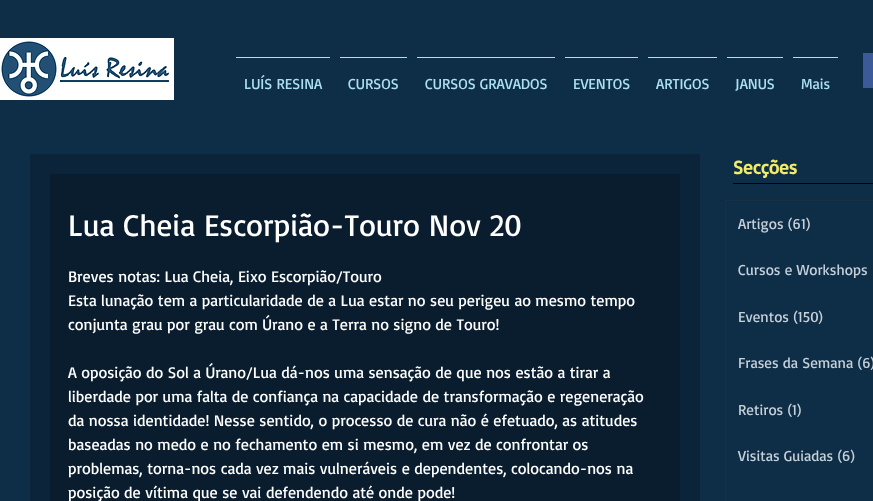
<svg xmlns="http://www.w3.org/2000/svg" width="873" height="501">
<rect width="100%" height="100%" fill="#0e2d47"/>
<image x="0" y="38" width="174" height="62" href="media/1.png"/>
<rect x="236" y="57" width="94" height="1" fill="#abe0f2"/>
<text x="244" y="89" style="font-family:Basic;font-size:15px;fill:#abe0f2">LUÍS RESINA</text>
<rect x="340" y="57" width="67" height="1" fill="#abe0f2"/>
<text x="348" y="89" style="font-family:Basic;font-size:15px;fill:#abe0f2">CURSOS</text>
<rect x="417" y="57" width="138" height="1" fill="#abe0f2"/>
<text x="425" y="89" style="font-family:Basic;font-size:15px;fill:#abe0f2">CURSOS GRAVADOS</text>
<rect x="565" y="57" width="73" height="1" fill="#abe0f2"/>
<text x="573" y="89" style="font-family:Basic;font-size:15px;fill:#abe0f2">EVENTOS</text>
<rect x="648" y="57" width="69" height="1" fill="#abe0f2"/>
<text x="656" y="89" style="font-family:Basic;font-size:15px;fill:#abe0f2">ARTIGOS</text>
<rect x="727" y="57" width="56" height="1" fill="#abe0f2"/>
<text x="735" y="89" style="font-family:Basic;font-size:15px;fill:#abe0f2">JANUS</text>
<rect x="793" y="57" width="45" height="1" fill="#abe0f2"/>
<text x="801" y="89" style="font-family:Basic;font-size:15px;fill:#abe0f2">Mais</text>
<rect x="863" y="53" width="10" height="35" fill="#3d5a98"/>
<text x="733" y="174" style="font-family:Basic;font-size:19px;font-weight:bold;fill:#f2eb6b">Secções</text>
<rect x="733" y="183" width="140" height="1" fill="#000"/>
<rect x="30" y="154" width="670" height="347" fill="#0b2439"/>
<rect x="50" y="174" width="630" height="327" fill="#091d2e"/>
<text x="68" y="236" style="font-family:Basic;font-size:31px;fill:#fff">Lua Cheia Escorpião-Touro Nov 20</text>
<text x="68" y="282" style="font-family:Basic;font-size:16px;fill:#fff">Breves notas: Lua Cheia, Eixo Escorpião/Touro</text>
<text x="68" y="306" style="font-family:Basic;font-size:16px;fill:#fff">Esta lunação tem a particularidade de a Lua estar no seu perigeu ao mesmo tempo</text>
<text x="68" y="330" style="font-family:Basic;font-size:16px;fill:#fff">conjunta grau por grau com Úrano e a Terra no signo de Touro!</text>
<text x="68" y="378" style="font-family:Basic;font-size:16px;fill:#fff">A oposição do Sol a Úrano/Lua dá-nos uma sensação de que nos estão a tirar a</text>
<text x="68" y="402" style="font-family:Basic;font-size:16px;fill:#fff">liberdade por uma falta de confiança na capacidade de transformação e regeneração</text>
<text x="68" y="426" style="font-family:Basic;font-size:16px;fill:#fff">da nossa identidade! Nesse sentido, o processo de cura não é efetuado, as atitudes</text>
<text x="68" y="450" style="font-family:Basic;font-size:16px;fill:#fff">baseadas no medo e no fechamento em si mesmo, em vez de confrontar os</text>
<text x="68" y="474" style="font-family:Basic;font-size:16px;fill:#fff">problemas, torna-nos cada vez mais vulneráveis e dependentes, colocando-nos na</text>
<text x="68" y="498" style="font-family:Basic;font-size:16px;fill:#fff">posição de vítima que se vai defendendo até onde pode!</text>
<rect x="725.5" y="200.5" width="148" height="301" fill="none" stroke="#193043"/>
<text x="738" y="229" style="font-family:Basic;font-size:15px;fill:#c5d0d9">Artigos (61)</text>
<text x="738" y="275" style="font-family:Basic;font-size:15px;fill:#c5d0d9">Cursos e Workshops</text>
<text x="738" y="322" style="font-family:Basic;font-size:15px;fill:#c5d0d9">Eventos (150)</text>
<text x="738" y="368" style="font-family:Basic;font-size:15px;fill:#c5d0d9">Frases da Semana (6)</text>
<text x="738" y="415" style="font-family:Basic;font-size:15px;fill:#c5d0d9">Retiros (1)</text>
<text x="738" y="461" style="font-family:Basic;font-size:15px;fill:#c5d0d9">Visitas Guiadas (6)</text>
</svg>
